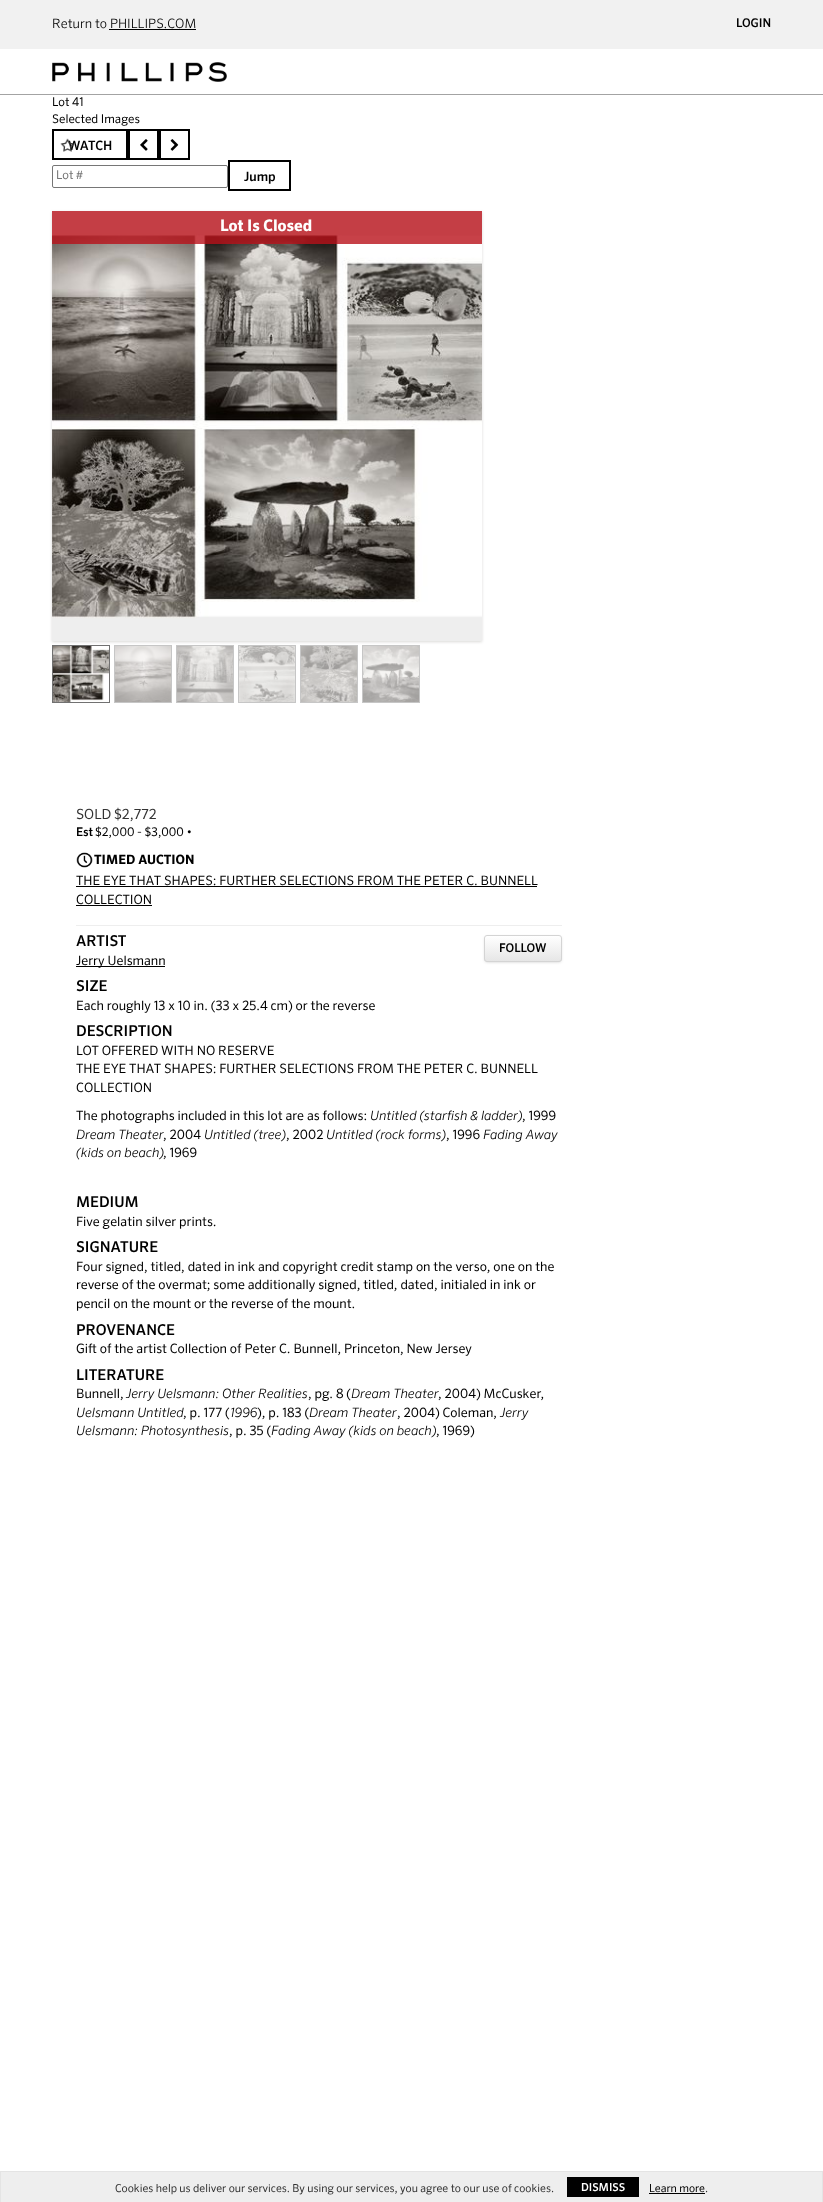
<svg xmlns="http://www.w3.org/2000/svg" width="823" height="2202">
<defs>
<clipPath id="clip1"><rect x="484" y="935" width="78" height="27" rx="3"/></clipPath>
<linearGradient id="g1" gradientUnits="userSpaceOnUse" x1="523" y1="936" x2="523" y2="961"><stop offset="0" stop-color="#fff"/><stop offset="1" stop-color="#e6e6e6"/></linearGradient>
</defs>
<rect width="100%" height="100%" fill="#fff"/>
<rect y="94" width="823" height="1" fill="#a3a3a3"/>
<rect width="823" height="49" fill="#f1f1f1"/>
<text x="52" y="28" style="font-family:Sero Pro;font-size:13px;font-weight:300;fill:#000">Return to PHILLIPS.COM</text>
<rect x="109" y="29" width="87" height="1" fill="#000"/>
<text x="736" y="27" style="font-family:Sero Pro;font-size:12px;font-weight:500;fill:#000">LOGIN</text>
<image x="52" y="62" width="175" height="20" href="media/1.png"/>
<text x="52" y="106" style="font-family:Sero Pro;font-size:12px;fill:#000">Lot 41</text>
<text x="52" y="123" style="font-family:Sero Pro;font-size:12px;fill:#000">Selected Images</text>
<rect x="53" y="130" width="74" height="29" fill="none" stroke="#000" stroke-width="2"/>
<text x="68" y="150" style="font-family:Sero Pro;font-size:13px;font-weight:500;fill:#000">WATCH</text>
<image x="60" y="138" width="15" height="14" href="media/2.png"/>
<rect x="129" y="130" width="29" height="29" fill="none" stroke="#000" stroke-width="2"/>
<image x="140" y="139" width="8" height="12" href="media/3.png"/>
<rect x="160" y="130" width="29" height="29" fill="none" stroke="#000" stroke-width="2"/>
<image x="170" y="139" width="9" height="12" href="media/4.png"/>
<rect x="52.5" y="165.5" width="175" height="22" rx="1.5" fill="none" stroke="#767676"/>
<text x="56" y="179" style="font-family:Sero Pro;font-size:12px;fill:#757575">Lot #</text>
<rect x="229" y="161" width="61" height="29" fill="none" stroke="#000" stroke-width="2"/>
<text x="244" y="181" style="font-family:Sero Pro;font-size:13px;font-weight:500;fill:#000">Jump</text>
<rect x="52" y="212" width="430" height="430" fill="#dad9d7" filter="blur(1.5px)"/>
<image x="52" y="211" width="430" height="430" href="media/5.png"/>
<rect x="52" y="211" width="430" height="33" fill="#b9121acc"/>
<text x="220" y="231" style="font-family:Sero Pro;font-size:16px;font-weight:bold;fill:#fff">Lot Is Closed</text>
<rect x="52.5" y="645.5" width="57" height="57" fill="none" stroke="#717171"/>
<rect x="114.5" y="645.5" width="57" height="57" fill="none" stroke="#c6c6c6"/>
<rect x="176.5" y="645.5" width="57" height="57" fill="none" stroke="#c6c6c6"/>
<rect x="238.5" y="645.5" width="57" height="57" fill="none" stroke="#c6c6c6"/>
<rect x="300.5" y="645.5" width="57" height="57" fill="none" stroke="#c6c6c6"/>
<rect x="362.5" y="645.5" width="57" height="57" fill="none" stroke="#c6c6c6"/>
<image x="53" y="646" width="56" height="56" href="media/6.png"/>
<image x="115" y="646" width="56" height="56" href="media/7.png"/>
<image x="177" y="646" width="56" height="56" href="media/8.png"/>
<image x="239" y="646" width="56" height="56" href="media/9.png"/>
<image x="301" y="646" width="56" height="56" href="media/10.png"/>
<image x="363" y="646" width="56" height="56" href="media/11.png"/>
<text x="76" y="819" style="font-family:Sero Pro;font-size:14px;fill:#333">SOLD</text>
<text x="114" y="819" style="font-family:Sero Pro;font-size:14px;fill:#333">$2,772</text>
<text x="76" y="836" style="font-family:Sero Pro;font-size:12px;font-weight:500;fill:#000">Est</text>
<text x="95" y="836" style="font-family:Sero Pro;font-size:12px;fill:#000">$2,000 - $3,000 •</text>
<image x="76" y="852" width="17" height="16" href="media/12.png"/>
<text x="94" y="864" style="font-family:Sero Pro;font-size:13px;font-weight:bold;fill:#000">TIMED AUCTION</text>
<text x="76" y="885" style="font-family:Sero Pro;font-size:13px;fill:#000">THE EYE THAT SHAPES: FURTHER SELECTIONS FROM THE PETER C. BUNNELL</text>
<rect x="76" y="886" width="461" height="1" fill="#000"/>
<text x="76" y="904" style="font-family:Sero Pro;font-size:13px;fill:#000">COLLECTION</text>
<rect x="76" y="905" width="76" height="1" fill="#000"/>
<rect x="76" y="925" width="486" height="1" fill="#eee"/>
<text x="76" y="946" style="font-family:Sero Pro;font-size:15px;font-weight:500;fill:#000">ARTIST</text>
<rect x="485" y="937" width="76" height="25" rx="2" fill="#00000033" filter="blur(1.5px)"/>
<g clip-path="url(#clip1)">
<rect x="484" y="936" width="78" height="25" fill="url(#g1)"/>
</g>
<rect x="484.5" y="935.5" width="77" height="26" rx="2.5" fill="none" stroke="#d4d4d4"/>
<text x="499" y="952" style="font-family:Sero Pro;font-size:12px;font-weight:500;fill:#000">FOLLOW</text>
<rect x="76" y="966" width="89" height="1" fill="#000"/>
<text x="76" y="965" style="font-family:Sero Pro;font-size:13px;fill:#000">Jerry Uelsmann</text>
<text x="76" y="991" style="font-family:Sero Pro;font-size:15px;font-weight:500;fill:#000">SIZE</text>
<text x="76" y="1010" style="font-family:Sero Pro;font-size:13px;fill:#000">Each roughly 13 x 10 in. (33 x 25.4 cm) or the reverse</text>
<text x="76" y="1036" style="font-family:Sero Pro;font-size:15px;font-weight:500;fill:#000">DESCRIPTION</text>
<text x="76" y="1055" style="font-family:Sero Pro;font-size:13px;fill:#000">LOT OFFERED WITH NO RESERVE</text>
<text x="76" y="1073" style="font-family:Sero Pro;font-size:13px;fill:#000">THE EYE THAT SHAPES: FURTHER SELECTIONS FROM THE PETER C. BUNNELL</text>
<text x="76" y="1092" style="font-family:Sero Pro;font-size:13px;fill:#000">COLLECTION</text>
<text x="76" y="1120" style="font-family:Sero Pro;font-size:13px;fill:#000">The photographs included in this lot are as follows:</text>
<text x="370" y="1120" style="font-family:Sero Pro;font-size:13px;font-weight:300;font-style:italic;fill:#000">Untitled (starfish &amp; ladder)</text>
<text x="522" y="1120" style="font-family:Sero Pro;font-size:13px;fill:#000">, 1999</text>
<text x="76" y="1139" style="font-family:Sero Pro;font-size:13px;font-weight:300;font-style:italic;fill:#000">Dream Theater</text>
<text x="163" y="1139" style="font-family:Sero Pro;font-size:13px;fill:#000">, 2004</text>
<text x="204" y="1139" style="font-family:Sero Pro;font-size:13px;font-weight:300;font-style:italic;fill:#000">Untitled (tree)</text>
<text x="286" y="1139" style="font-family:Sero Pro;font-size:13px;fill:#000">, 2002</text>
<text x="326" y="1139" style="font-family:Sero Pro;font-size:13px;font-weight:300;font-style:italic;fill:#000">Untitled (rock forms)</text>
<text x="446" y="1139" style="font-family:Sero Pro;font-size:13px;fill:#000">, 1996</text>
<text x="483" y="1139" style="font-family:Sero Pro;font-size:13px;font-weight:300;font-style:italic;fill:#000">Fading Away</text>
<text x="76" y="1157" style="font-family:Sero Pro;font-size:13px;font-weight:300;font-style:italic;fill:#000">(kids on beach)</text>
<text x="163" y="1157" style="font-family:Sero Pro;font-size:13px;fill:#000">, 1969</text>
<text x="76" y="1207" style="font-family:Sero Pro;font-size:15px;font-weight:500;fill:#000">MEDIUM</text>
<text x="76" y="1226" style="font-family:Sero Pro;font-size:13px;fill:#000">Five gelatin silver prints.</text>
<text x="76" y="1252" style="font-family:Sero Pro;font-size:15px;font-weight:500;fill:#000">SIGNATURE</text>
<text x="76" y="1271" style="font-family:Sero Pro;font-size:13px;fill:#000">Four signed, titled, dated in ink and copyright credit stamp on the verso, one on the</text>
<text x="76" y="1289" style="font-family:Sero Pro;font-size:13px;fill:#000">reverse of the overmat; some additionally signed, titled, dated, initialed in ink or</text>
<text x="76" y="1308" style="font-family:Sero Pro;font-size:13px;fill:#000">pencil on the mount or the reverse of the mount.</text>
<text x="76" y="1335" style="font-family:Sero Pro;font-size:15px;font-weight:500;fill:#000">PROVENANCE</text>
<text x="76" y="1353" style="font-family:Sero Pro;font-size:13px;fill:#000">Gift of the artist Collection of Peter C. Bunnell, Princeton, New Jersey</text>
<text x="76" y="1380" style="font-family:Sero Pro;font-size:15px;font-weight:500;fill:#000">LITERATURE</text>
<text x="76" y="1398" style="font-family:Sero Pro;font-size:13px;fill:#000">Bunnell,</text>
<text x="126" y="1398" style="font-family:Sero Pro;font-size:13px;font-weight:300;font-style:italic;fill:#000">Jerry Uelsmann: Other Realities</text>
<text x="308" y="1398" style="font-family:Sero Pro;font-size:13px;fill:#000">, pg. 8 (</text>
<text x="351" y="1398" style="font-family:Sero Pro;font-size:13px;font-weight:300;font-style:italic;fill:#000">Dream Theater</text>
<text x="438" y="1398" style="font-family:Sero Pro;font-size:13px;fill:#000">, 2004) McCusker,</text>
<text x="76" y="1417" style="font-family:Sero Pro;font-size:13px;font-weight:300;font-style:italic;fill:#000">Uelsmann Untitled</text>
<text x="183" y="1417" style="font-family:Sero Pro;font-size:13px;fill:#000">, p. 177 (</text>
<text x="230" y="1417" style="font-family:Sero Pro;font-size:13px;font-weight:300;font-style:italic;fill:#000">1996</text>
<text x="257" y="1417" style="font-family:Sero Pro;font-size:13px;fill:#000">), p. 183 (</text>
<text x="309" y="1417" style="font-family:Sero Pro;font-size:13px;font-weight:300;font-style:italic;fill:#000">Dream Theater</text>
<text x="397" y="1417" style="font-family:Sero Pro;font-size:13px;fill:#000">, 2004) Coleman,</text>
<text x="500" y="1417" style="font-family:Sero Pro;font-size:13px;font-weight:300;font-style:italic;fill:#000">Jerry</text>
<text x="76" y="1435" style="font-family:Sero Pro;font-size:13px;font-weight:300;font-style:italic;fill:#000">Uelsmann: Photosynthesis</text>
<text x="229" y="1435" style="font-family:Sero Pro;font-size:13px;fill:#000">, p. 35 (</text>
<text x="271" y="1435" style="font-family:Sero Pro;font-size:13px;font-weight:300;font-style:italic;fill:#000">Fading Away (kids on beach)</text>
<text x="436" y="1435" style="font-family:Sero Pro;font-size:13px;fill:#000">, 1969)</text>
<rect x="1" y="2172" width="821" height="30" fill="#eee"/>
<rect y="2171" width="823" height="1" fill="#e4e4e4"/>
<rect x="822" y="2171" width="1" height="31" fill="#e4e4e4"/>
<rect y="2171" width="1" height="31" fill="#e4e4e4"/>
<text x="115" y="2192" style="font-family:Sero Pro;font-size:11px;fill:#333">Cookies help us deliver our services. By using our services, you agree to our use of cookies.</text>
<rect x="567" y="2177" width="72" height="20" fill="#000"/>
<text x="581" y="2191" style="font-family:Sero Pro;font-size:11px;font-weight:500;fill:#fff">DISMISS</text>
<text x="649" y="2192" style="font-family:Sero Pro;font-size:11px;fill:#000">Learn more</text>
<rect x="649" y="2193" width="56" height="1" fill="#000"/>
<text x="705" y="2192" style="font-family:Sero Pro;font-size:11px;fill:#333">.</text>
</svg>
